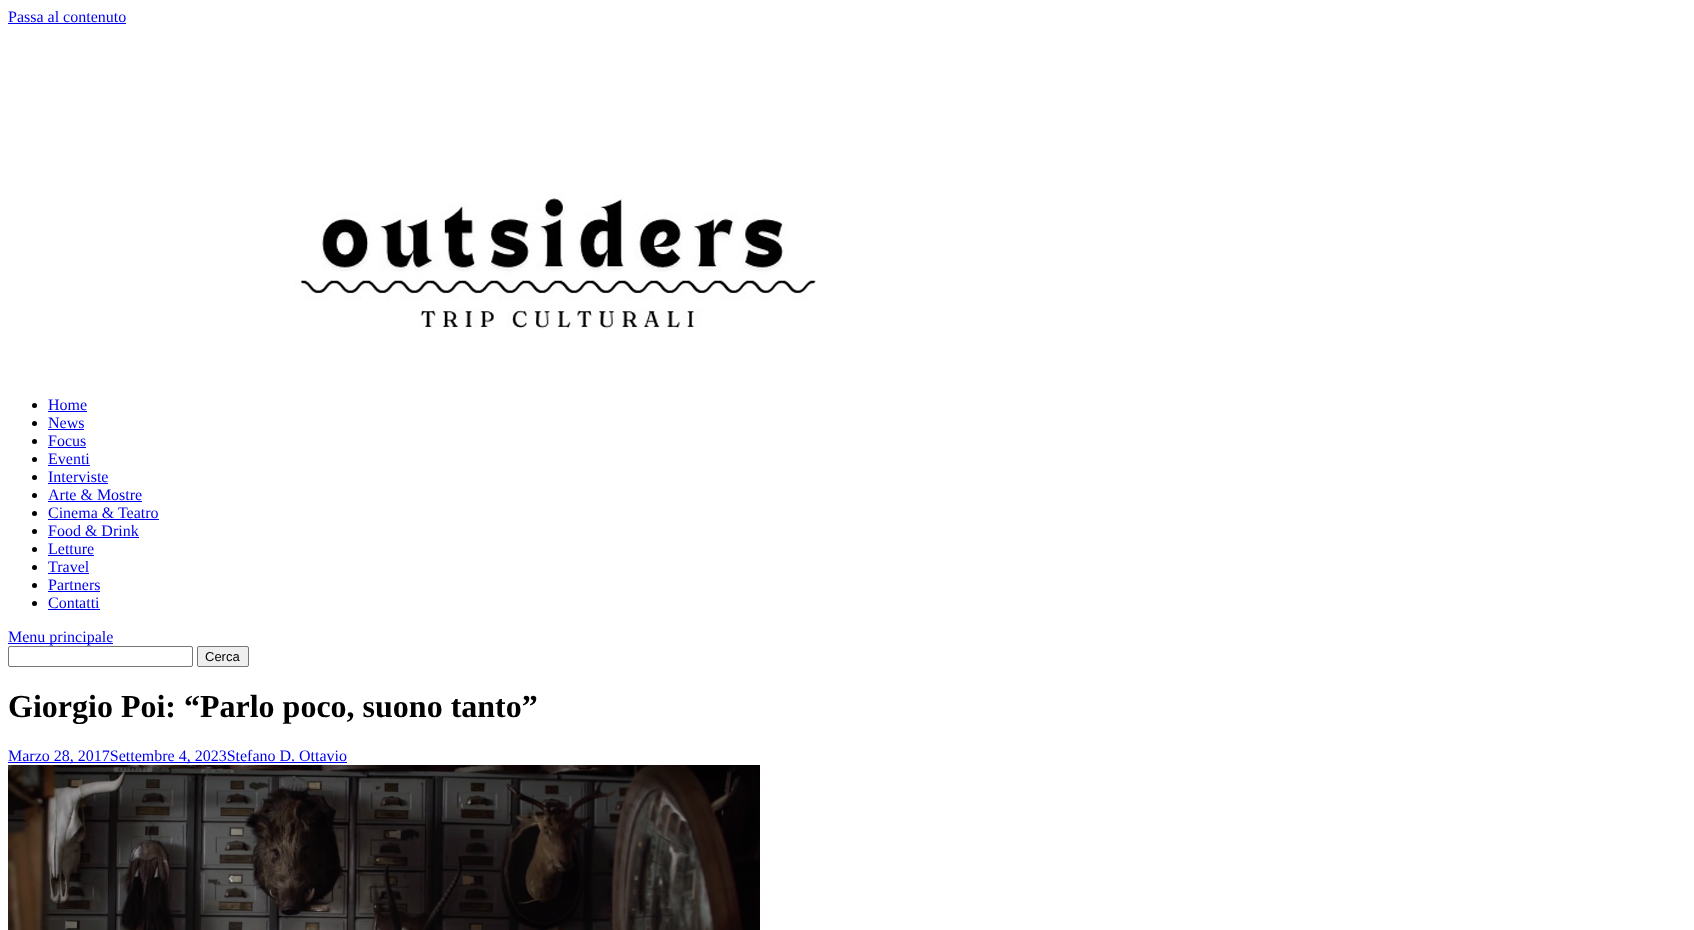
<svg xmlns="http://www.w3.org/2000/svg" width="1694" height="930">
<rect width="100%" height="100%" fill="#fff"/>
<text x="8" y="22" style="font-family:Liberation Serif;font-size:16px;fill:#00e">Passa al contenuto</text>
<rect x="8" y="23" width="118" height="1" fill="#00e"/>
<image x="295" y="193" width="521" height="136" href="media/1.png"/>
<circle cx="34.5" cy="405.5" r="2.5" fill="#000"/>
<text x="48" y="410" style="font-family:Liberation Serif;font-size:16px;fill:#00e">Home</text>
<rect x="48" y="411" width="39" height="1" fill="#00e"/>
<circle cx="34.5" cy="423.5" r="2.5" fill="#000"/>
<text x="48" y="428" style="font-family:Liberation Serif;font-size:16px;fill:#00e">News</text>
<rect x="48" y="429" width="36" height="1" fill="#00e"/>
<circle cx="34.5" cy="441.5" r="2.5" fill="#000"/>
<text x="48" y="446" style="font-family:Liberation Serif;font-size:16px;fill:#00e">Focus</text>
<rect x="48" y="447" width="38" height="1" fill="#00e"/>
<circle cx="34.5" cy="459.5" r="2.5" fill="#000"/>
<text x="48" y="464" style="font-family:Liberation Serif;font-size:16px;fill:#00e">Eventi</text>
<rect x="48" y="465" width="42" height="1" fill="#00e"/>
<circle cx="34.5" cy="477.5" r="2.5" fill="#000"/>
<text x="48" y="482" style="font-family:Liberation Serif;font-size:16px;fill:#00e">Interviste</text>
<rect x="48" y="483" width="60" height="1" fill="#00e"/>
<circle cx="34.5" cy="495.5" r="2.5" fill="#000"/>
<text x="48" y="500" style="font-family:Liberation Serif;font-size:16px;fill:#00e">Arte &amp; Mostre</text>
<rect x="48" y="501" width="94" height="1" fill="#00e"/>
<circle cx="34.5" cy="513.5" r="2.5" fill="#000"/>
<text x="48" y="518" style="font-family:Liberation Serif;font-size:16px;fill:#00e">Cinema &amp; Teatro</text>
<rect x="48" y="519" width="111" height="1" fill="#00e"/>
<circle cx="34.5" cy="531.5" r="2.5" fill="#000"/>
<text x="48" y="536" style="font-family:Liberation Serif;font-size:16px;fill:#00e">Food &amp; Drink</text>
<rect x="48" y="537" width="91" height="1" fill="#00e"/>
<circle cx="34.5" cy="549.5" r="2.5" fill="#000"/>
<text x="48" y="554" style="font-family:Liberation Serif;font-size:16px;fill:#00e">Letture</text>
<rect x="48" y="555" width="46" height="1" fill="#00e"/>
<circle cx="34.5" cy="567.5" r="2.5" fill="#000"/>
<text x="48" y="572" style="font-family:Liberation Serif;font-size:16px;fill:#00e">Travel</text>
<rect x="48" y="573" width="41" height="1" fill="#00e"/>
<circle cx="34.5" cy="585.5" r="2.5" fill="#000"/>
<text x="48" y="590" style="font-family:Liberation Serif;font-size:16px;fill:#00e">Partners</text>
<rect x="48" y="591" width="52" height="1" fill="#00e"/>
<circle cx="34.5" cy="603.5" r="2.5" fill="#000"/>
<text x="48" y="608" style="font-family:Liberation Serif;font-size:16px;fill:#00e">Contatti</text>
<rect x="48" y="609" width="52" height="1" fill="#00e"/>
<rect x="8" y="643" width="105" height="1" fill="#00e"/>
<text x="8" y="642" style="font-family:Liberation Serif;font-size:16px;fill:#00e">Menu principale</text>
<rect x="8.5" y="646.5" width="184" height="20" rx="1.5" fill="none" stroke="#767676"/>
<rect x="197.5" y="646.5" width="51" height="20" rx="1.5" fill="#efefef" stroke="#767676"/>
<text x="205" y="661" style="font-family:Liberation Sans;font-size:13px;fill:#000">Cerca</text>
<text x="8" y="717" style="font-family:Liberation Serif;font-size:32px;font-weight:bold;fill:#000">Giorgio Poi: “Parlo poco, suono tanto”</text>
<rect x="8" y="762" width="339" height="1" fill="#00e"/>
<text x="8" y="761" style="font-family:Liberation Serif;font-size:16px;fill:#00e">Marzo 28, 2017Settembre 4, 2023Stefano D. Ottavio</text>
<image x="8" y="765" width="752" height="165" href="media/2.png"/>
</svg>
